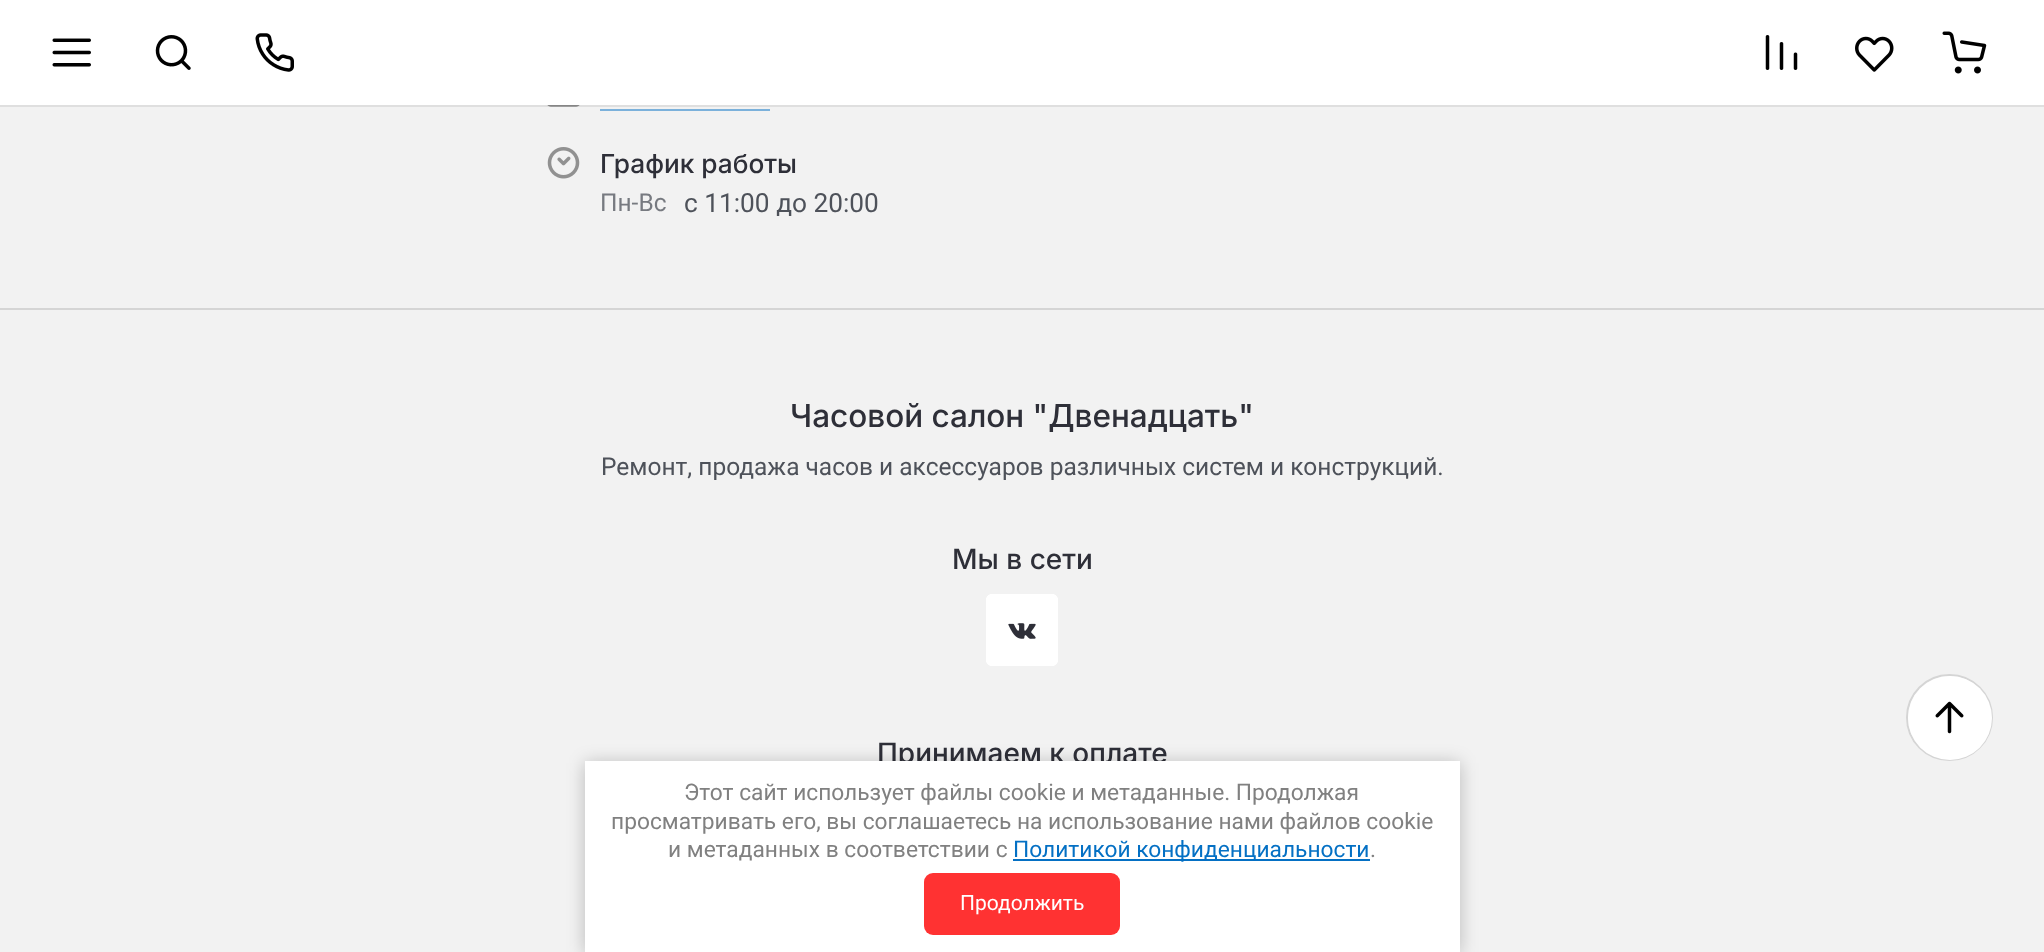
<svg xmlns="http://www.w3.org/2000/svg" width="2044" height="952">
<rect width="100%" height="100%" fill="#f2f2f2"/>
<image x="547" y="105" width="33" height="2" href="media/7.png"/>
<rect y="105" width="2044" height="2" fill="#00000014"/>
<rect width="2044" height="105" fill="#fff"/>
<image x="52" y="38" width="39" height="29" href="media/1.png"/>
<image x="155" y="35" width="36" height="35" href="media/2.png"/>
<image x="255" y="33" width="39" height="39" href="media/3.png"/>
<image x="1765" y="35" width="33" height="35" href="media/4.png"/>
<image x="1855" y="36" width="39" height="36" href="media/5.png"/>
<image x="1942" y="31" width="45" height="43" href="media/6.png"/>
<rect x="600" y="109" width="170" height="2" fill="#7bb1db"/>
<image x="547" y="147" width="33" height="32" href="media/8.png"/>
<text x="600" y="173" style="font-family:Inter;font-size:26.25px;font-weight:500;fill:#2e2f38">График работы</text>
<text x="600" y="211" style="font-family:Roboto;font-size:24.5px;fill:#777a80">Пн-Вс</text>
<text x="684" y="212" style="font-family:Roboto;font-size:26.25px;fill:#4e525a">с 11:00 до 20:00</text>
<rect y="308" width="2044" height="2" fill="#d5d5d5"/>
<text x="790" y="427" style="font-family:Inter;font-size:31.5px;font-weight:500;fill:#2e2f38">Часовой салон "Двенадцать"</text>
<text x="601" y="475" style="font-family:Roboto;font-size:24.5px;fill:#4e525a">Ремонт, продажа часов и аксессуаров различных систем и конструкций.</text>
<text x="952" y="569" style="font-family:Inter;font-size:28px;font-weight:500;fill:#2e2f38">Мы в сети</text>
<image x="986" y="594" width="72" height="72" href="media/9.png"/>
<text x="877" y="763" style="font-family:Inter;font-size:28px;font-weight:500;fill:#2e2f38">Принимаем к оплате</text>
<circle cx="1949.5" cy="717.5" r="42.5" fill="none" stroke="#d5d5d5" stroke-width="2"/>
<circle cx="1950" cy="718" r="42" fill="#fff"/>
<image x="1935" y="701" width="29" height="33" href="media/10.png"/>
<rect x="585" y="763" width="875" height="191" fill="#0000003b" filter="blur(9px)"/>
<rect x="585" y="761" width="875" height="191" fill="#fff"/>
<text x="684" y="800" style="font-family:Roboto;font-size:22.75px;fill:#808080">Этот сайт использует файлы cookie и метаданные. Продолжая</text>
<text x="611" y="829" style="font-family:Roboto;font-size:22.75px;fill:#808080">просматривать его, вы соглашаетесь на использование нами файлов cookie</text>
<text x="668" y="857" style="font-family:Roboto;font-size:22.75px;fill:#808080">и метаданных в соответствии с</text>
<rect x="1013" y="859" width="357" height="2" fill="#0470c4"/>
<text x="1013" y="857" style="font-family:Roboto;font-size:22.75px;fill:#0470c4">Политикой конфиденциальности</text>
<text x="1370" y="857" style="font-family:Roboto;font-size:22.75px;fill:#808080">.</text>
<rect x="924" y="873" width="196" height="62" rx="9" fill="#ff3232"/>
<text x="960" y="910" style="font-family:Roboto;font-size:21px;fill:#fff">Продолжить</text>
</svg>
